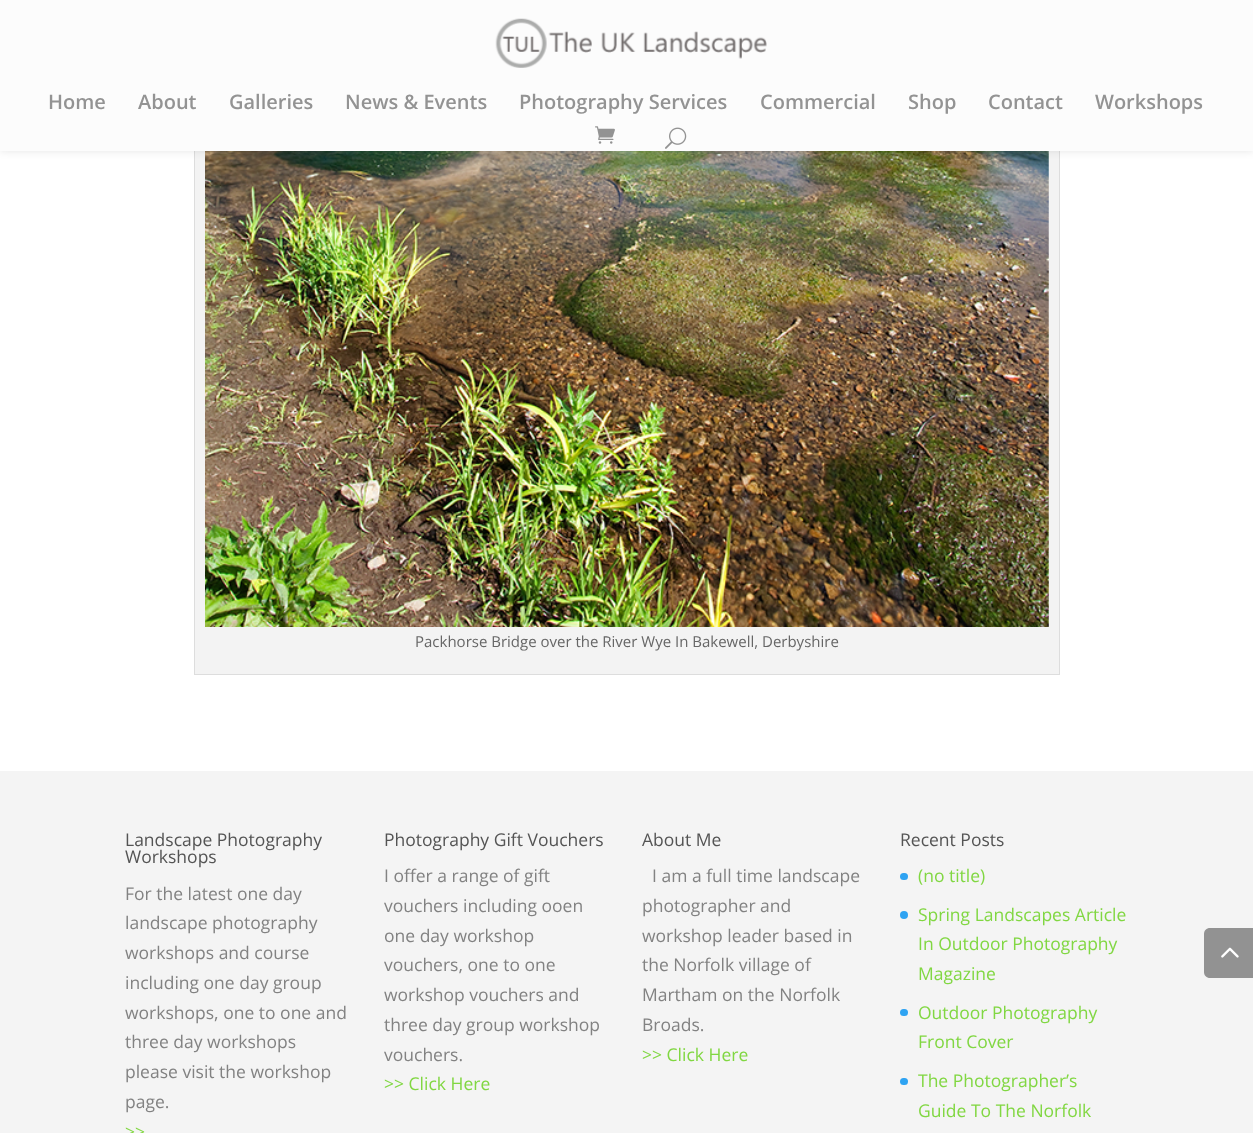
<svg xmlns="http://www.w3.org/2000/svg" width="1253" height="1133">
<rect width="100%" height="100%" fill="#fff"/>
<rect x="195" y="151" width="864" height="523" fill="#f3f3f3"/>
<rect x="194.5" y="-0.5" width="865" height="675" fill="none" stroke="#ddd"/>
<image x="205" y="151" width="844" height="476" href="media/4.png"/>
<rect width="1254" height="151" fill="#0000001a" filter="blur(4.5px)"/>
<rect width="1253" height="151" fill="#fcfcfc"/>
<image x="495" y="18" width="272" height="50" href="media/1.png"/>
<text x="48" y="109" style="font-family:Open Sans;font-size:20px;font-weight:600;fill:#939393">Home</text>
<text x="138" y="109" style="font-family:Open Sans;font-size:20px;font-weight:600;fill:#939393">About</text>
<text x="229" y="109" style="font-family:Open Sans;font-size:20px;font-weight:600;fill:#939393">Galleries</text>
<text x="345" y="109" style="font-family:Open Sans;font-size:20px;font-weight:600;fill:#939393">News &amp; Events</text>
<text x="519" y="109" style="font-family:Open Sans;font-size:20px;font-weight:600;fill:#939393">Photography Services</text>
<text x="760" y="109" style="font-family:Open Sans;font-size:20px;font-weight:600;fill:#939393">Commercial</text>
<text x="908" y="109" style="font-family:Open Sans;font-size:20px;font-weight:600;fill:#939393">Shop</text>
<text x="988" y="109" style="font-family:Open Sans;font-size:20px;font-weight:600;fill:#939393">Contact</text>
<text x="1095" y="109" style="font-family:Open Sans;font-size:20px;font-weight:600;fill:#939393">Workshops</text>
<image x="595" y="126" width="20" height="18" href="media/2.png"/>
<image x="665" y="127" width="22" height="22" href="media/3.png"/>
<text x="415" y="647" style="font-family:Open Sans;font-size:15px;fill:#666">Packhorse Bridge over the River Wye In Bakewell, Derbyshire</text>
<rect y="771" width="1253" height="362" fill="#f4f4f4"/>
<text x="125" y="846" style="font-family:Open Sans;font-size:17.5px;fill:#545454">Landscape Photography</text>
<text x="125" y="863" style="font-family:Open Sans;font-size:17.5px;fill:#545454">Workshops</text>
<text x="125" y="900" style="font-family:Open Sans;font-size:17.5px;fill:#828282">For the latest one day</text>
<text x="125" y="929" style="font-family:Open Sans;font-size:17.5px;fill:#828282">landscape photography</text>
<text x="125" y="959" style="font-family:Open Sans;font-size:17.5px;fill:#828282">workshops and course</text>
<text x="125" y="989" style="font-family:Open Sans;font-size:17.5px;fill:#828282">including one day group</text>
<text x="125" y="1019" style="font-family:Open Sans;font-size:17.5px;fill:#828282">workshops, one to one and</text>
<text x="125" y="1048" style="font-family:Open Sans;font-size:17.5px;fill:#828282">three day workshops</text>
<text x="125" y="1078" style="font-family:Open Sans;font-size:17.5px;fill:#828282">please visit the workshop</text>
<text x="125" y="1108" style="font-family:Open Sans;font-size:17.5px;fill:#828282">page.</text>
<text x="125" y="1138" style="font-family:Open Sans;font-size:17.5px;fill:#81d742">&gt;&gt;</text>
<text x="384" y="846" style="font-family:Open Sans;font-size:17.5px;fill:#545454">Photography Gift Vouchers</text>
<text x="384" y="882" style="font-family:Open Sans;font-size:17.5px;fill:#828282">I offer a range of gift</text>
<text x="384" y="912" style="font-family:Open Sans;font-size:17.5px;fill:#828282">vouchers including ooen</text>
<text x="384" y="942" style="font-family:Open Sans;font-size:17.5px;fill:#828282">one day workshop</text>
<text x="384" y="971" style="font-family:Open Sans;font-size:17.5px;fill:#828282">vouchers, one to one</text>
<text x="384" y="1001" style="font-family:Open Sans;font-size:17.5px;fill:#828282">workshop vouchers and</text>
<text x="384" y="1031" style="font-family:Open Sans;font-size:17.5px;fill:#828282">three day group workshop</text>
<text x="384" y="1061" style="font-family:Open Sans;font-size:17.5px;fill:#828282">vouchers.</text>
<text x="384" y="1090" style="font-family:Open Sans;font-size:17.5px;fill:#81d742">&gt;&gt; Click Here</text>
<text x="642" y="846" style="font-family:Open Sans;font-size:17.5px;fill:#545454">About Me</text>
<text x="652" y="882" style="font-family:Open Sans;font-size:17.5px;fill:#828282">I am a full time landscape</text>
<text x="642" y="912" style="font-family:Open Sans;font-size:17.5px;fill:#828282">photographer and</text>
<text x="642" y="942" style="font-family:Open Sans;font-size:17.5px;fill:#828282">workshop leader based in</text>
<text x="642" y="971" style="font-family:Open Sans;font-size:17.5px;fill:#828282">the Norfolk village of</text>
<text x="642" y="1001" style="font-family:Open Sans;font-size:17.5px;fill:#828282">Martham on the Norfolk</text>
<text x="642" y="1031" style="font-family:Open Sans;font-size:17.5px;fill:#828282">Broads.</text>
<text x="642" y="1061" style="font-family:Open Sans;font-size:17.5px;fill:#81d742">&gt;&gt; Click Here</text>
<text x="900" y="846" style="font-family:Open Sans;font-size:17.5px;fill:#545454">Recent Posts</text>
<rect x="900" y="873" width="8" height="7" rx="3.5" fill="#2ea3f2"/>
<text x="918" y="882" style="font-family:Open Sans;font-size:17.5px;fill:#81d742">(no title)</text>
<circle cx="904" cy="915" r="4" fill="#2ea3f2"/>
<text x="918" y="921" style="font-family:Open Sans;font-size:17.5px;fill:#81d742">Spring Landscapes Article</text>
<text x="918" y="950" style="font-family:Open Sans;font-size:17.5px;fill:#81d742">In Outdoor Photography</text>
<text x="918" y="980" style="font-family:Open Sans;font-size:17.5px;fill:#81d742">Magazine</text>
<rect x="900" y="1009" width="8" height="7" rx="3.5" fill="#2ea3f2"/>
<text x="918" y="1019" style="font-family:Open Sans;font-size:17.5px;fill:#81d742">Outdoor Photography</text>
<text x="918" y="1048" style="font-family:Open Sans;font-size:17.5px;fill:#81d742">Front Cover</text>
<rect x="900" y="1078" width="8" height="7" rx="3.5" fill="#2ea3f2"/>
<text x="918" y="1087" style="font-family:Open Sans;font-size:17.5px;fill:#81d742">The Photographer’s</text>
<text x="918" y="1117" style="font-family:Open Sans;font-size:17.5px;fill:#81d742">Guide To The Norfolk</text>
<path d="M1210 928h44v50h-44c-3.5 0-6-2.5-6-6v-38c0-3.5 2.5-6 6-6z" fill="#929292"/>
<image x="1221" y="947" width="18" height="11" href="media/5.png"/>
</svg>
